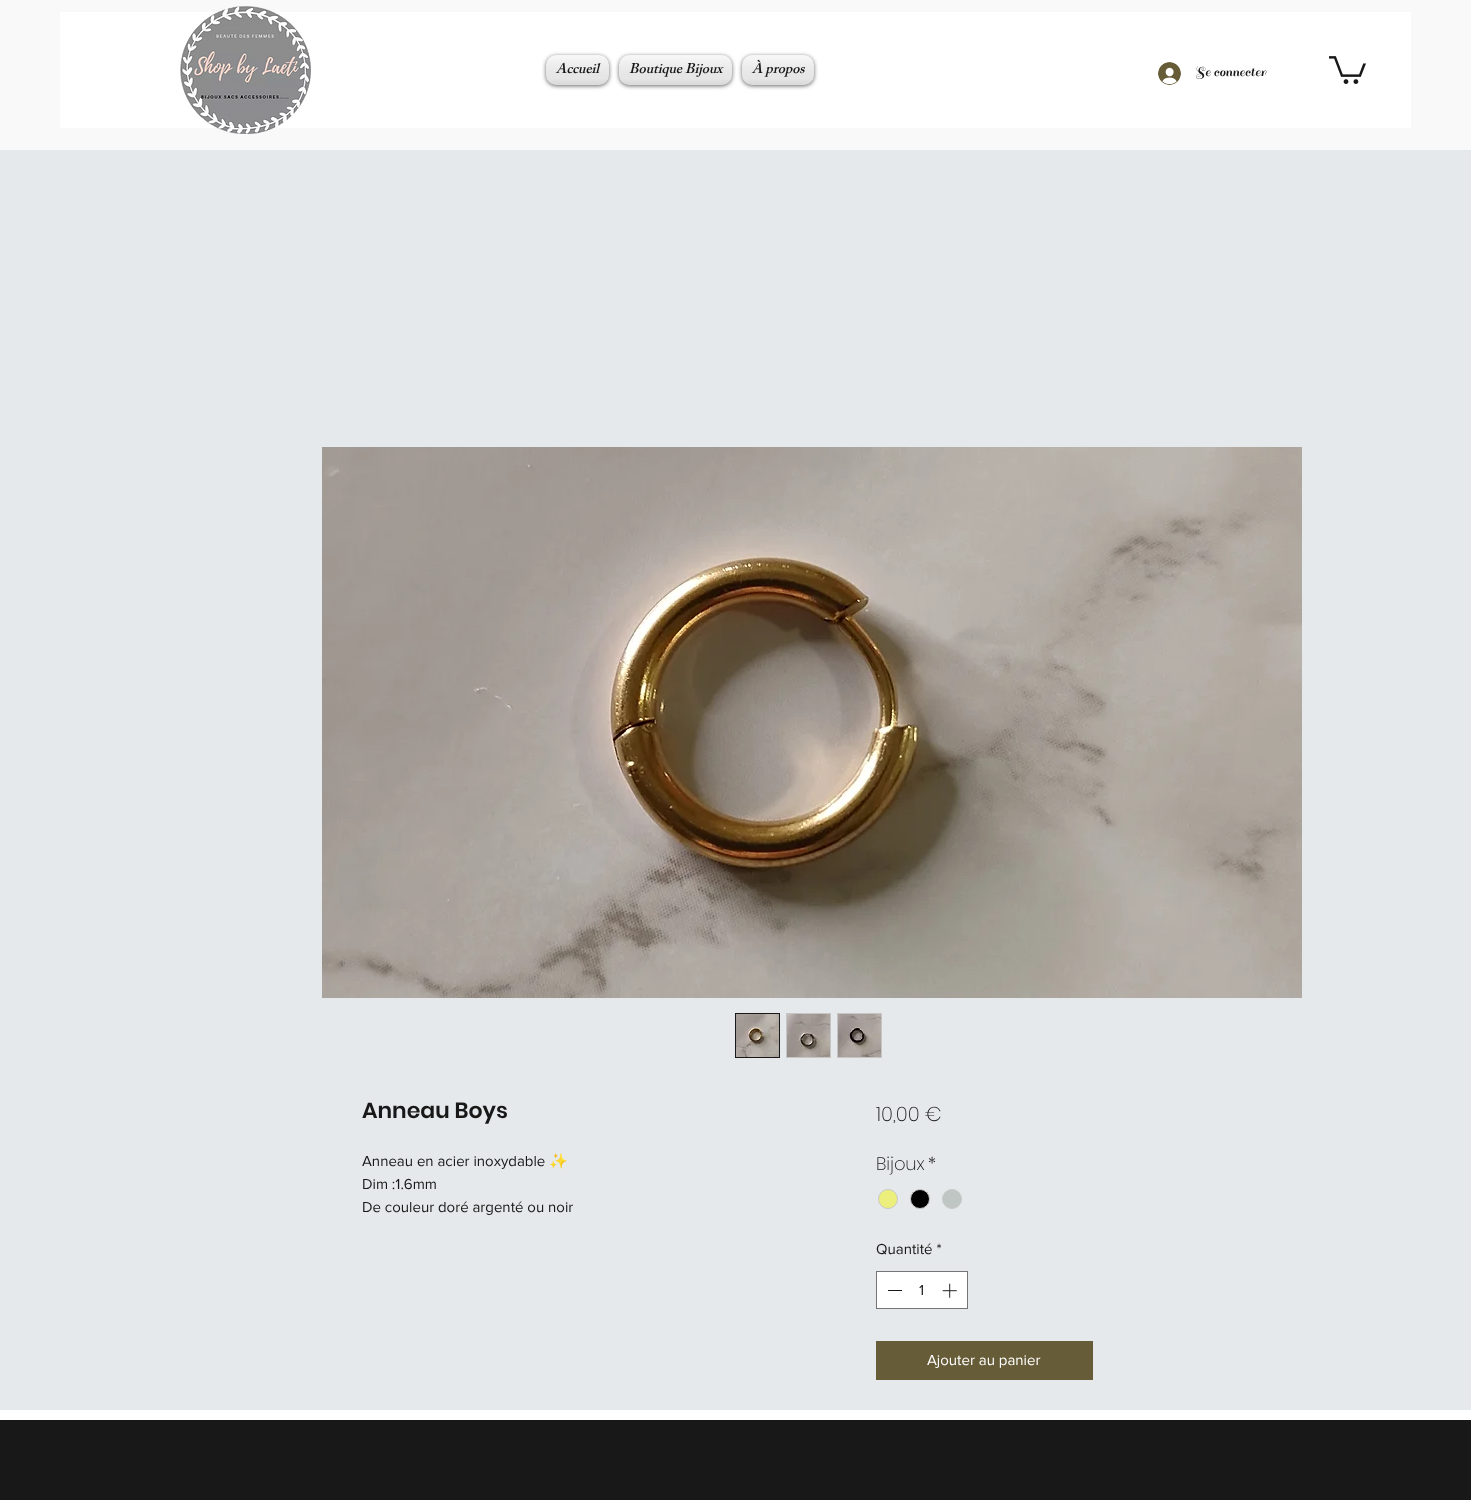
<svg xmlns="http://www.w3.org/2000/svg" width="1471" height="1500">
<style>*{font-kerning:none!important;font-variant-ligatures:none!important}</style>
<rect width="100%" height="100%" fill="#fff"/>
<rect width="1471" height="150" fill="#f9f9f9"/>
<rect x="60" y="12" width="1351" height="116" fill="#fff"/>
<image x="180" y="6" width="131" height="128" href="media/1.png"/>
<rect x="546" y="56" width="63" height="30" rx="10" fill="#00000099" filter="blur(2px)"/>
<rect x="546" y="55" width="63" height="30" rx="10" fill="#fff"/>
<image x="546" y="55" width="63" height="30" href="media/2.png"/>
<text x="556" y="73" style="font-family:'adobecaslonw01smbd';font-size:14px;font-weight:600;font-style:italic;fill:#181818">Accueil</text>
<rect x="619" y="56" width="113" height="30" rx="10" fill="#00000099" filter="blur(2px)"/>
<rect x="619" y="55" width="113" height="30" rx="10" fill="#fff"/>
<image x="619" y="55" width="113" height="30" href="media/3.png"/>
<text x="629" y="73" style="font-family:'adobecaslonw01smbd';font-size:14px;font-weight:600;font-style:italic;fill:#181818">Boutique Bijoux</text>
<rect x="742" y="56" width="72" height="30" rx="10" fill="#00000099" filter="blur(2px)"/>
<rect x="742" y="55" width="72" height="30" rx="10" fill="#fff"/>
<image x="742" y="55" width="72" height="30" href="media/4.png"/>
<text x="752" y="73" style="font-family:'adobecaslonw01smbd';font-size:14px;font-weight:600;font-style:italic;fill:#181818">À propos</text>
<image x="1158" y="62" width="23" height="23" href="media/5.png"/>
<text x="1195" y="76" style="font-family:Sail;font-size:14px;fill:#181818">Se connecter</text>
<image x="1329" y="56" width="37" height="28" href="media/6.png"/>
<rect y="150" width="1471" height="1260" fill="#e6e9eb"/>
<image x="322" y="447" width="980" height="551" href="media/7.png"/>
<rect x="735.5" y="1013.5" width="44" height="44" fill="none" stroke="#181818"/>
<image x="736" y="1014" width="43" height="43" href="media/8.png"/>
<rect x="786" y="1013" width="45" height="45" fill="#c5c5c5"/>
<image x="787" y="1014" width="43" height="43" href="media/9.png"/>
<rect x="837" y="1013" width="45" height="45" fill="#c5c5c5"/>
<image x="838" y="1014" width="43" height="43" href="media/10.png"/>
<text x="362" y="1118" style="font-family:Poppins;font-size:22px;font-weight:600;fill:#181818">Anneau Boys</text>
<text x="362" y="1166" style="font-family:'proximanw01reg';font-size:15px;fill:#181818">Anneau en acier inoxydable</text>
<text x="549" y="1166" style="font-family:Noto Color Emoji;font-size:15px;fill:#181818">✨</text>
<text x="362" y="1189" style="font-family:'proximanw01reg';font-size:15px;fill:#181818">Dim :1.6mm</text>
<text x="362" y="1212" style="font-family:'proximanw01reg';font-size:15px;fill:#181818">De couleur doré argenté ou noir</text>
<text x="876" y="1121" style="font-family:Poppins;font-size:20px;font-weight:200;fill:#181818">10,00 €</text>
<text x="876" y="1170" style="font-family:Poppins;font-size:18px;font-weight:200;fill:#181818">Bijoux</text>
<text x="928" y="1170" style="font-family:Poppins;font-size:18px;font-weight:200;fill:#181818">*</text>
<circle cx="888" cy="1199" r="9.5" fill="#ecef7c" stroke="#c9c9c9"/>
<circle cx="920" cy="1199" r="9.5" fill="#000" stroke="#c9c9c9"/>
<circle cx="952" cy="1199" r="9.5" fill="#bfc6c3" stroke="#c9c9c9"/>
<text x="876" y="1254" style="font-family:'proximanw01reg';font-size:15px;fill:#181818">Quantité *</text>
<rect x="876.5" y="1271.5" width="91" height="37" fill="#fff" stroke="#747474"/>
<rect x="888" y="1290" width="14" height="1" fill="#181818"/>
<text x="919" y="1295" style="font-family:'proximanw01reg';font-size:15px;fill:#181818">1</text>
<image x="942" y="1283" width="15" height="15" href="media/11.png"/>
<rect x="876" y="1341" width="217" height="39" fill="#675c38"/>
<text x="927" y="1365" style="font-family:'proximanw01reg';font-size:15px;fill:#fff">Ajouter au panier</text>
<rect y="1420" width="1471" height="80" fill="#181818"/>
</svg>
